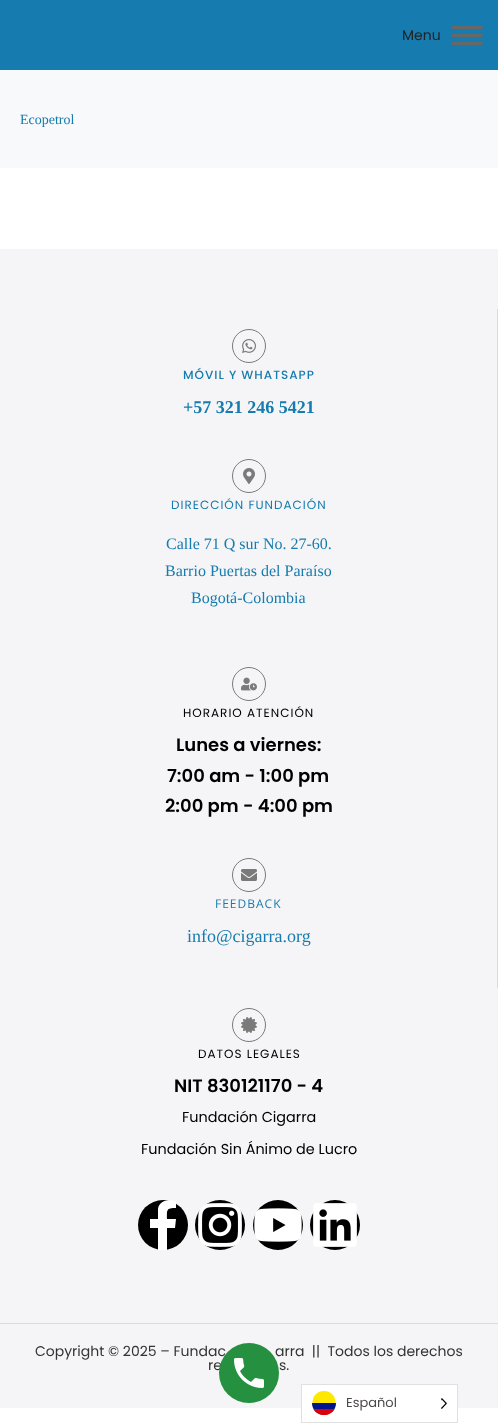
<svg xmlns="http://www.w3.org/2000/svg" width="498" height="1423">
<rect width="100%" height="100%" fill="#fff"/>
<rect width="498" height="70" fill="#167bae"/>
<text x="402" y="40" style="font-family:Poppins;font-size:14px;fill:#232323">Menu</text>
<rect x="451" y="34" width="32" height="3" rx="1.5" fill="#686868"/>
<rect x="451" y="26" width="32" height="3" rx="1.5" fill="#686868"/>
<rect x="451" y="42" width="32" height="3" rx="1.5" fill="#686868"/>
<rect y="70" width="498" height="98" fill="#f8f9fa"/>
<text x="20" y="124" style="font-family:Liberation Serif;font-size:14px;fill:#167bae">Ecopetrol</text>
<rect y="249" width="498" height="1074" fill="#f5f5f7"/>
<rect x="497" y="309" width="1" height="679" fill="#e0dad6"/>
<circle cx="249" cy="346" r="16.5" fill="none" stroke="#7a7a7a"/>
<image x="242" y="339" width="14" height="14" href="media/1.png"/>
<text x="183" y="379" style="font-family:Poppins;font-size:12px;font-weight:500;letter-spacing:1px;fill:#167bae">MÓVIL Y WHATSAPP</text>
<text x="183" y="413" style="font-family:Liberation Serif;font-size:18px;font-weight:bold;fill:#167bae">+57 321 246 5421</text>
<circle cx="249" cy="476" r="16.5" fill="none" stroke="#7a7a7a"/>
<image x="243" y="468" width="12" height="16" href="media/2.png"/>
<text x="171" y="509" style="font-family:Poppins;font-size:12px;letter-spacing:1px;fill:#167bae">DIRECCIÓN FUNDACIÓN</text>
<text x="166" y="549" style="font-family:Liberation Serif;font-size:16px;fill:#167bae">Calle 71 Q sur No. 27-60.</text>
<text x="165" y="576" style="font-family:Liberation Serif;font-size:16px;fill:#167bae">Barrio Puertas del Paraíso</text>
<text x="191" y="603" style="font-family:Liberation Serif;font-size:16px;fill:#167bae">Bogotá-Colombia</text>
<circle cx="249" cy="684" r="16.5" fill="none" stroke="#7a7a7a"/>
<image x="241" y="677" width="16" height="14" href="media/3.png"/>
<text x="183" y="717" style="font-family:Poppins;font-size:12px;letter-spacing:1px;fill:#000">HORARIO ATENCIÓN</text>
<text x="176" y="751" style="font-family:Poppins;font-size:18px;font-weight:600;fill:#000">Lunes a viernes:</text>
<text x="167" y="782" style="font-family:Poppins;font-size:18px;font-weight:600;fill:#000">7:00 am - 1:00 pm</text>
<text x="165" y="812" style="font-family:Poppins;font-size:18px;font-weight:600;fill:#000">2:00 pm - 4:00 pm</text>
<circle cx="249" cy="875" r="16.5" fill="none" stroke="#7a7a7a"/>
<image x="241" y="869" width="16" height="12" href="media/4.png"/>
<text x="215" y="908" style="font-family:Open Sans;font-size:12px;letter-spacing:1px;fill:#167bae">FEEDBACK</text>
<text x="187" y="942" style="font-family:Liberation Serif;font-size:18px;fill:#167bae">info@cigarra.org</text>
<circle cx="249" cy="1025" r="16.5" fill="none" stroke="#7a7a7a"/>
<image x="241" y="1017" width="16" height="16" href="media/5.png"/>
<text x="198" y="1058" style="font-family:Poppins;font-size:12px;letter-spacing:1px;fill:#000">DATOS LEGALES</text>
<text x="174" y="1092" style="font-family:Poppins;font-size:18px;font-weight:600;fill:#000">NIT 830121170 - 4</text>
<text x="182" y="1122" style="font-family:Poppins;font-size:14.4px;fill:#000">Fundación Cigarra</text>
<text x="141" y="1154" style="font-family:Poppins;font-size:14.4px;fill:#000">Fundación Sin Ánimo de Lucro</text>
<circle cx="163" cy="1225" r="25" fill="#000"/>
<path d="M175 1228l1-9h-9c0-9-1-11 9-11v-7c-7-2-17-1-18 8v10h-8v9h8v22h9v-22z" fill="#fff"/>
<circle cx="220" cy="1225" r="25" fill="#000"/>
<image x="198" y="1203" width="44" height="44" href="media/6.png"/>
<circle cx="278" cy="1225" r="25" fill="#000"/>
<image x="254" y="1208" width="48" height="34" href="media/7.png"/>
<circle cx="335" cy="1225" r="25" fill="#000"/>
<image x="313" y="1203" width="44" height="44" href="media/8.png"/>
<rect y="1324" width="498" height="84" fill="#f5f5f7"/>
<rect y="1323" width="498" height="1" fill="#e0dad6"/>
<text x="35" y="1356" style="font-family:Poppins;font-size:14px;fill:#333">Copyright © 2025 – Fundac</text>
<text x="275" y="1356" style="font-family:Poppins;font-size:14px;fill:#333" xml:space="preserve">arra  ||  Todos los derechos</text>
<text x="208" y="1370" style="font-family:Poppins;font-size:14px;fill:#333">re</text>
<text x="279" y="1370" style="font-family:Poppins;font-size:14px;fill:#333">s.</text>
<circle cx="249" cy="1373" r="30" fill="#269041"/>
<image x="234" y="1358" width="30" height="30" href="media/9.png"/>
<rect x="302" y="1385" width="155" height="23" fill="#fff"/>
<rect x="301.5" y="1384.5" width="156" height="38" fill="none" stroke="#e0e0e0"/>
<path d="M324 1391c15.5 0 15.5 24 0 24c-15.5 0-15.5-24 0-24z" fill="#ffe800"/>
<path d="M312 1403c0 15.5 24 15.5 24 0z" fill="#00148e"/>
<path d="M334.5 1409c-4.5 8-16.5 8-21 0z" fill="#da0010"/>
<text x="346" y="1407" style="font-family:Poppins;font-size:13px;fill:#4d4949">Español</text>
<image x="441" y="1398" width="6" height="11" href="media/10.png"/>
</svg>
